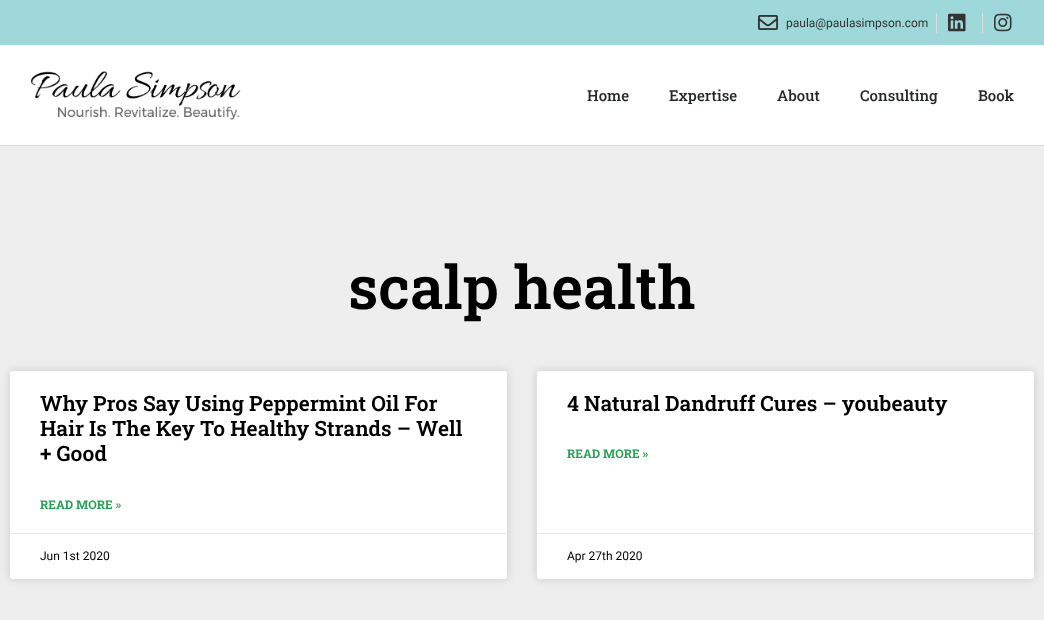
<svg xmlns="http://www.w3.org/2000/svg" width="1044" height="620">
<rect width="100%" height="100%" fill="#fff"/>
<rect width="1044" height="45" fill="#9ed8db"/>
<image x="758" y="15" width="20" height="15" href="media/1.png"/>
<text x="786" y="27" style="font-family:Roboto;font-size:12px;fill:#333">paula@paulasimpson.com</text>
<rect x="936" y="13" width="1" height="20" fill="#ddd"/>
<image x="948" y="13" width="18" height="19" href="media/2.png"/>
<rect x="982" y="13" width="1" height="20" fill="#ddd"/>
<image x="994" y="13" width="18" height="19" href="media/3.png"/>
<rect y="145" width="1044" height="1" fill="#d8d8d8"/>
<image x="31" y="71" width="210" height="49" href="media/4.png"/>
<text x="587" y="101" style="font-family:Roboto Slab;font-size:15px;font-weight:500;fill:#262a2b">Home</text>
<text x="669" y="101" style="font-family:Roboto Slab;font-size:15px;font-weight:500;fill:#262a2b">Expertise</text>
<text x="777" y="101" style="font-family:Roboto Slab;font-size:15px;font-weight:500;fill:#262a2b">About</text>
<text x="860" y="101" style="font-family:Roboto Slab;font-size:15px;font-weight:500;fill:#262a2b">Consulting</text>
<text x="978" y="101" style="font-family:Roboto Slab;font-size:15px;font-weight:500;fill:#262a2b">Book</text>
<rect y="146" width="1044" height="474" fill="#eee"/>
<text x="348" y="309" style="font-family:Roboto Slab;font-size:60px;font-weight:600;fill:#000">scalp health</text>
<rect x="10" y="371" width="497" height="208" rx="3" fill="#00000026" filter="blur(5px)"/>
<rect x="10" y="371" width="497" height="208" rx="3" fill="#fff"/>
<text x="40" y="411" style="font-family:Roboto Slab;font-size:21px;font-weight:600;fill:#000">Why Pros Say Using Peppermint Oil For</text>
<text x="40" y="436" style="font-family:Roboto Slab;font-size:21px;font-weight:600;fill:#000">Hair Is The Key To Healthy Strands – Well</text>
<text x="40" y="461" style="font-family:Roboto Slab;font-size:21px;font-weight:600;fill:#000">+ Good</text>
<text x="40" y="509" style="font-family:Roboto Slab;font-size:12px;font-weight:bold;fill:#23a455">READ MORE »</text>
<rect x="10" y="533" width="497" height="1" fill="#eaeaea"/>
<text x="40" y="560" style="font-family:Roboto;font-size:12px;fill:#000">Jun 1st 2020</text>
<rect x="537" y="371" width="497" height="208" rx="3" fill="#00000026" filter="blur(5px)"/>
<rect x="537" y="371" width="497" height="208" rx="3" fill="#fff"/>
<text x="567" y="411" style="font-family:Roboto Slab;font-size:21px;font-weight:600;fill:#000">4 Natural Dandruff Cures – youbeauty</text>
<text x="567" y="458" style="font-family:Roboto Slab;font-size:12px;font-weight:bold;fill:#23a455">READ MORE »</text>
<rect x="537" y="533" width="497" height="1" fill="#eaeaea"/>
<text x="567" y="560" style="font-family:Roboto;font-size:12px;fill:#000">Apr 27th 2020</text>
</svg>
